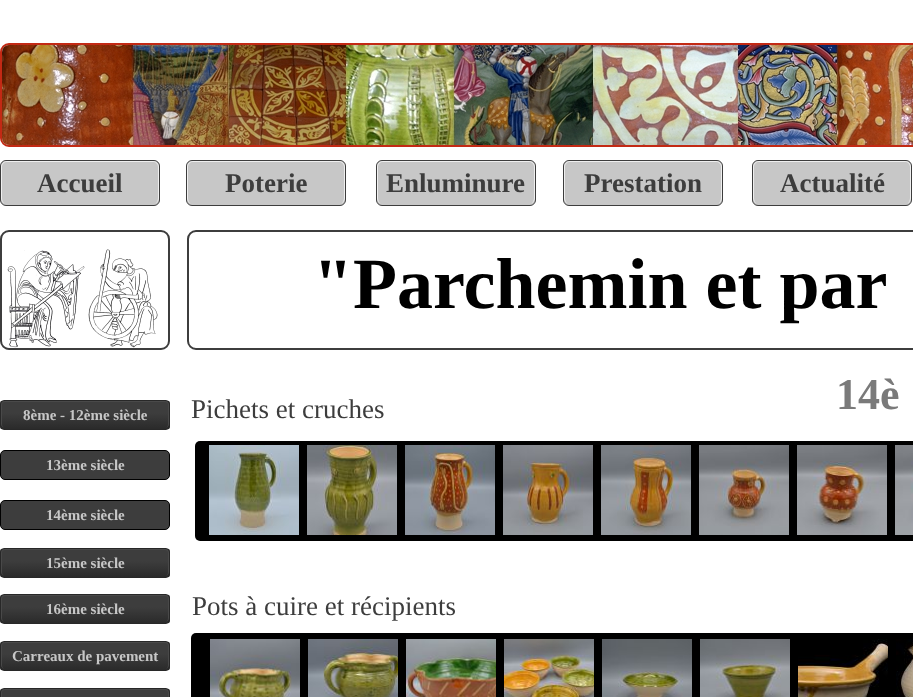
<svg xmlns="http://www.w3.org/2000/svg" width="913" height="697">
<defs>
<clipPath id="clip1"><rect y="400" width="170" height="30" rx="4"/></clipPath>
<linearGradient id="g1" gradientUnits="userSpaceOnUse" x1="1" y1="413" x2="1" y2="431"><stop offset="0" stop-color="#3d3d3d"/><stop offset="1" stop-color="#282828"/></linearGradient>
<clipPath id="clip2"><rect y="548" width="170" height="30" rx="4"/></clipPath>
<linearGradient id="g2" gradientUnits="userSpaceOnUse" x1="1" y1="561" x2="1" y2="579"><stop offset="0" stop-color="#3d3d3d"/><stop offset="1" stop-color="#282828"/></linearGradient>
<clipPath id="clip3"><rect y="594" width="170" height="30" rx="4"/></clipPath>
<linearGradient id="g3" gradientUnits="userSpaceOnUse" x1="1" y1="607" x2="1" y2="625"><stop offset="0" stop-color="#3d3d3d"/><stop offset="1" stop-color="#282828"/></linearGradient>
<clipPath id="clip4"><rect y="641" width="170" height="30" rx="4"/></clipPath>
<linearGradient id="g4" gradientUnits="userSpaceOnUse" x1="1" y1="654" x2="1" y2="672"><stop offset="0" stop-color="#3d3d3d"/><stop offset="1" stop-color="#282828"/></linearGradient>
<clipPath id="clip5"><rect y="688" width="170" height="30" rx="4"/></clipPath>
<linearGradient id="g5" gradientUnits="userSpaceOnUse" x1="1" y1="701" x2="1" y2="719"><stop offset="0" stop-color="#3d3d3d"/><stop offset="1" stop-color="#282828"/></linearGradient>
</defs>
<rect width="100%" height="100%" fill="#fff"/>
<rect x="1" y="44" width="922" height="102" rx="8" fill="none" stroke="#c32914" stroke-width="2"/>
<image x="2" y="45" width="911" height="100" href="media/1.png"/>
<rect x="0.5" y="160.5" width="159" height="45" rx="5.5" fill="#c7c7c7" stroke="#3d3d3d"/>
<path d="M7 161h146c3 0 6 3 6 6v31c0 3-3 6-6 6h-146c-3 0-6-3-6-6v-31c0-3 3-6 6-6zm0 1h146c3 0 5 2 5 5v31c0 3-2 6-5 6h-146c-3 0-5-3-5-6v-31c0-3 2-5 5-5z" fill="#efefef" fill-rule="evenodd"/>
<text x="37" y="192" style="font-family:Liberation Serif;font-size:27px;font-weight:bold;fill:#3d3d3d">Accueil</text>
<rect x="186.5" y="160.5" width="159" height="45" rx="5.5" fill="#c7c7c7" stroke="#3d3d3d"/>
<path d="M193 161h146c3 0 6 3 6 6v31c0 3-3 6-6 6h-146c-3 0-6-3-6-6v-31c0-3 3-6 6-6zm0 1h146c3 0 5 2 5 5v31c0 3-2 6-5 6h-146c-3 0-5-3-5-6v-31c0-3 2-5 5-5z" fill="#efefef" fill-rule="evenodd"/>
<text x="225" y="192" style="font-family:Liberation Serif;font-size:27px;font-weight:bold;fill:#3d3d3d">Poterie</text>
<rect x="376.5" y="160.5" width="159" height="45" rx="5.5" fill="#c7c7c7" stroke="#3d3d3d"/>
<path d="M383 161h146c3 0 6 3 6 6v31c0 3-3 6-6 6h-146c-3 0-6-3-6-6v-31c0-3 3-6 6-6zm0 1h146c3 0 5 2 5 5v31c0 3-2 6-5 6h-146c-3 0-5-3-5-6v-31c0-3 2-5 5-5z" fill="#efefef" fill-rule="evenodd"/>
<text x="386" y="192" style="font-family:Liberation Serif;font-size:27px;font-weight:bold;fill:#3d3d3d">Enluminure</text>
<rect x="563.5" y="160.5" width="159" height="45" rx="5.5" fill="#c7c7c7" stroke="#3d3d3d"/>
<path d="M570 161h146c3 0 6 3 6 6v31c0 3-3 6-6 6h-146c-3 0-6-3-6-6v-31c0-3 3-6 6-6zm0 1h146c3 0 5 2 5 5v31c0 3-2 6-5 6h-146c-3 0-5-3-5-6v-31c0-3 2-5 5-5z" fill="#efefef" fill-rule="evenodd"/>
<text x="584" y="192" style="font-family:Liberation Serif;font-size:27px;font-weight:bold;fill:#3d3d3d">Prestation</text>
<rect x="752.5" y="160.5" width="159" height="45" rx="5.5" fill="#c7c7c7" stroke="#3d3d3d"/>
<path d="M759 161h146c3 0 6 3 6 6v31c0 3-3 6-6 6h-146c-3 0-6-3-6-6v-31c0-3 3-6 6-6zm0 1h146c3 0 5 2 5 5v31c0 3-2 6-5 6h-146c-3 0-5-3-5-6v-31c0-3 2-5 5-5z" fill="#efefef" fill-rule="evenodd"/>
<text x="780" y="192" style="font-family:Liberation Serif;font-size:27px;font-weight:bold;fill:#3d3d3d">Actualité</text>
<rect x="1" y="231" width="168" height="118" rx="8" fill="none" stroke="#3d3d3d" stroke-width="2"/>
<image x="7" y="250" width="78" height="98" href="media/2.png"/>
<image x="88" y="249" width="70" height="99" href="media/3.png"/>
<rect x="188" y="231" width="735" height="118" rx="8" fill="none" stroke="#3d3d3d" stroke-width="2"/>
<text x="313" y="308" style="font-family:Liberation Serif;font-size:72px;font-weight:bold;fill:#000">"Parchemin et par</text>
<g clip-path="url(#clip1)">
<rect y="401" width="170" height="28" fill="url(#g1)"/>
</g>
<rect x="0.5" y="400.5" width="169" height="29" rx="3.5" fill="none" stroke="#282828"/>
<path d="M5 401h160c2 0 4 2 4 4v19c0 2-2 4-4 4h-160c-2 0-4-2-4-4v-19c0-2 2-4 4-4zm0 1h160c2 0 3 1 3 3v19c0 2-1 4-3 4h-160c-2 0-3-2-3-4v-19c0-2 1-3 3-3z" fill="#494949" fill-rule="evenodd"/>
<text x="23" y="420" style="font-family:Liberation Serif;font-size:15px;font-weight:bold;fill:#c7c7c7">8ème - 12ème siècle</text>
<text x="191" y="418" style="font-family:Liberation Serif;font-size:27px;fill:#3d3d3d">Pichets et cruches</text>
<text x="836" y="409" style="font-family:Liberation Serif;font-size:44px;font-weight:bold;fill:#7a7a7a">14è</text>
<rect x="195" y="441" width="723" height="100" rx="5" fill="#000"/>
<rect x="0.5" y="450.5" width="169" height="29" rx="4.5" fill="#3d3d3d" stroke="#000"/>
<text x="46" y="470" style="font-family:Liberation Serif;font-size:15px;font-weight:bold;fill:#c7c7c7">13ème siècle</text>
<image x="209" y="445" width="90" height="90" href="media/4.png"/>
<image x="307" y="445" width="90" height="90" href="media/5.png"/>
<image x="405" y="445" width="90" height="90" href="media/6.png"/>
<image x="503" y="445" width="90" height="90" href="media/7.png"/>
<image x="601" y="445" width="90" height="90" href="media/8.png"/>
<image x="699" y="445" width="90" height="90" href="media/9.png"/>
<image x="797" y="445" width="90" height="90" href="media/10.png"/>
<image x="895" y="445" width="18" height="90" href="media/11.png"/>
<rect x="0.5" y="500.5" width="169" height="29" rx="4.5" fill="#3d3d3d" stroke="#000"/>
<text x="46" y="520" style="font-family:Liberation Serif;font-size:15px;font-weight:bold;fill:#c7c7c7">14ème siècle</text>
<g clip-path="url(#clip2)">
<rect y="549" width="170" height="28" fill="url(#g2)"/>
</g>
<rect x="0.5" y="548.5" width="169" height="29" rx="3.5" fill="none" stroke="#282828"/>
<path d="M5 549h160c2 0 4 2 4 4v19c0 2-2 4-4 4h-160c-2 0-4-2-4-4v-19c0-2 2-4 4-4zm0 1h160c2 0 3 1 3 3v19c0 2-1 4-3 4h-160c-2 0-3-2-3-4v-19c0-2 1-3 3-3z" fill="#494949" fill-rule="evenodd"/>
<text x="46" y="568" style="font-family:Liberation Serif;font-size:15px;font-weight:bold;fill:#c7c7c7">15ème siècle</text>
<g clip-path="url(#clip3)">
<rect y="595" width="170" height="28" fill="url(#g3)"/>
</g>
<rect x="0.5" y="594.5" width="169" height="29" rx="3.5" fill="none" stroke="#282828"/>
<path d="M5 595h160c2 0 4 2 4 4v19c0 2-2 4-4 4h-160c-2 0-4-2-4-4v-19c0-2 2-4 4-4zm0 1h160c2 0 3 1 3 3v19c0 2-1 4-3 4h-160c-2 0-3-2-3-4v-19c0-2 1-3 3-3z" fill="#494949" fill-rule="evenodd"/>
<text x="46" y="614" style="font-family:Liberation Serif;font-size:15px;font-weight:bold;fill:#c7c7c7">16ème siècle</text>
<text x="192" y="615" style="font-family:Liberation Serif;font-size:27px;fill:#3d3d3d">Pots à cuire et récipients</text>
<rect x="191" y="633" width="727" height="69" rx="5" fill="#000"/>
<g clip-path="url(#clip4)">
<rect y="642" width="170" height="28" fill="url(#g4)"/>
</g>
<rect x="0.5" y="641.5" width="169" height="29" rx="3.5" fill="none" stroke="#282828"/>
<path d="M5 642h160c2 0 4 2 4 4v19c0 2-2 4-4 4h-160c-2 0-4-2-4-4v-19c0-2 2-4 4-4zm0 1h160c2 0 3 1 3 3v19c0 2-1 4-3 4h-160c-2 0-3-2-3-4v-19c0-2 1-3 3-3z" fill="#494949" fill-rule="evenodd"/>
<text x="12" y="661" style="font-family:Liberation Serif;font-size:15px;font-weight:bold;fill:#c7c7c7">Carreaux de pavement</text>
<image x="210" y="639" width="90" height="58" href="media/12.png"/>
<image x="308" y="639" width="90" height="58" href="media/13.png"/>
<image x="406" y="639" width="90" height="58" href="media/14.png"/>
<image x="504" y="639" width="90" height="58" href="media/15.png"/>
<image x="602" y="639" width="90" height="58" href="media/16.png"/>
<image x="700" y="639" width="90" height="58" href="media/17.png"/>
<image x="798" y="639" width="90" height="58" href="media/18.png"/>
<image x="896" y="639" width="17" height="58" href="media/19.png"/>
<g clip-path="url(#clip5)">
<rect y="689" width="170" height="8" fill="url(#g5)"/>
</g>
<rect x="0.5" y="688.5" width="169" height="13" rx="3.5" fill="none" stroke="#282828"/>
<path d="M5 689h160c2 0 4 2 4 4v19c0 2-2 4-4 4h-160c-2 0-4-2-4-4v-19c0-2 2-4 4-4zm0 1h160c2 0 3 1 3 3v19c0 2-1 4-3 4h-160c-2 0-3-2-3-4v-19c0-2 1-3 3-3z" fill="#494949" fill-rule="evenodd"/>
</svg>
